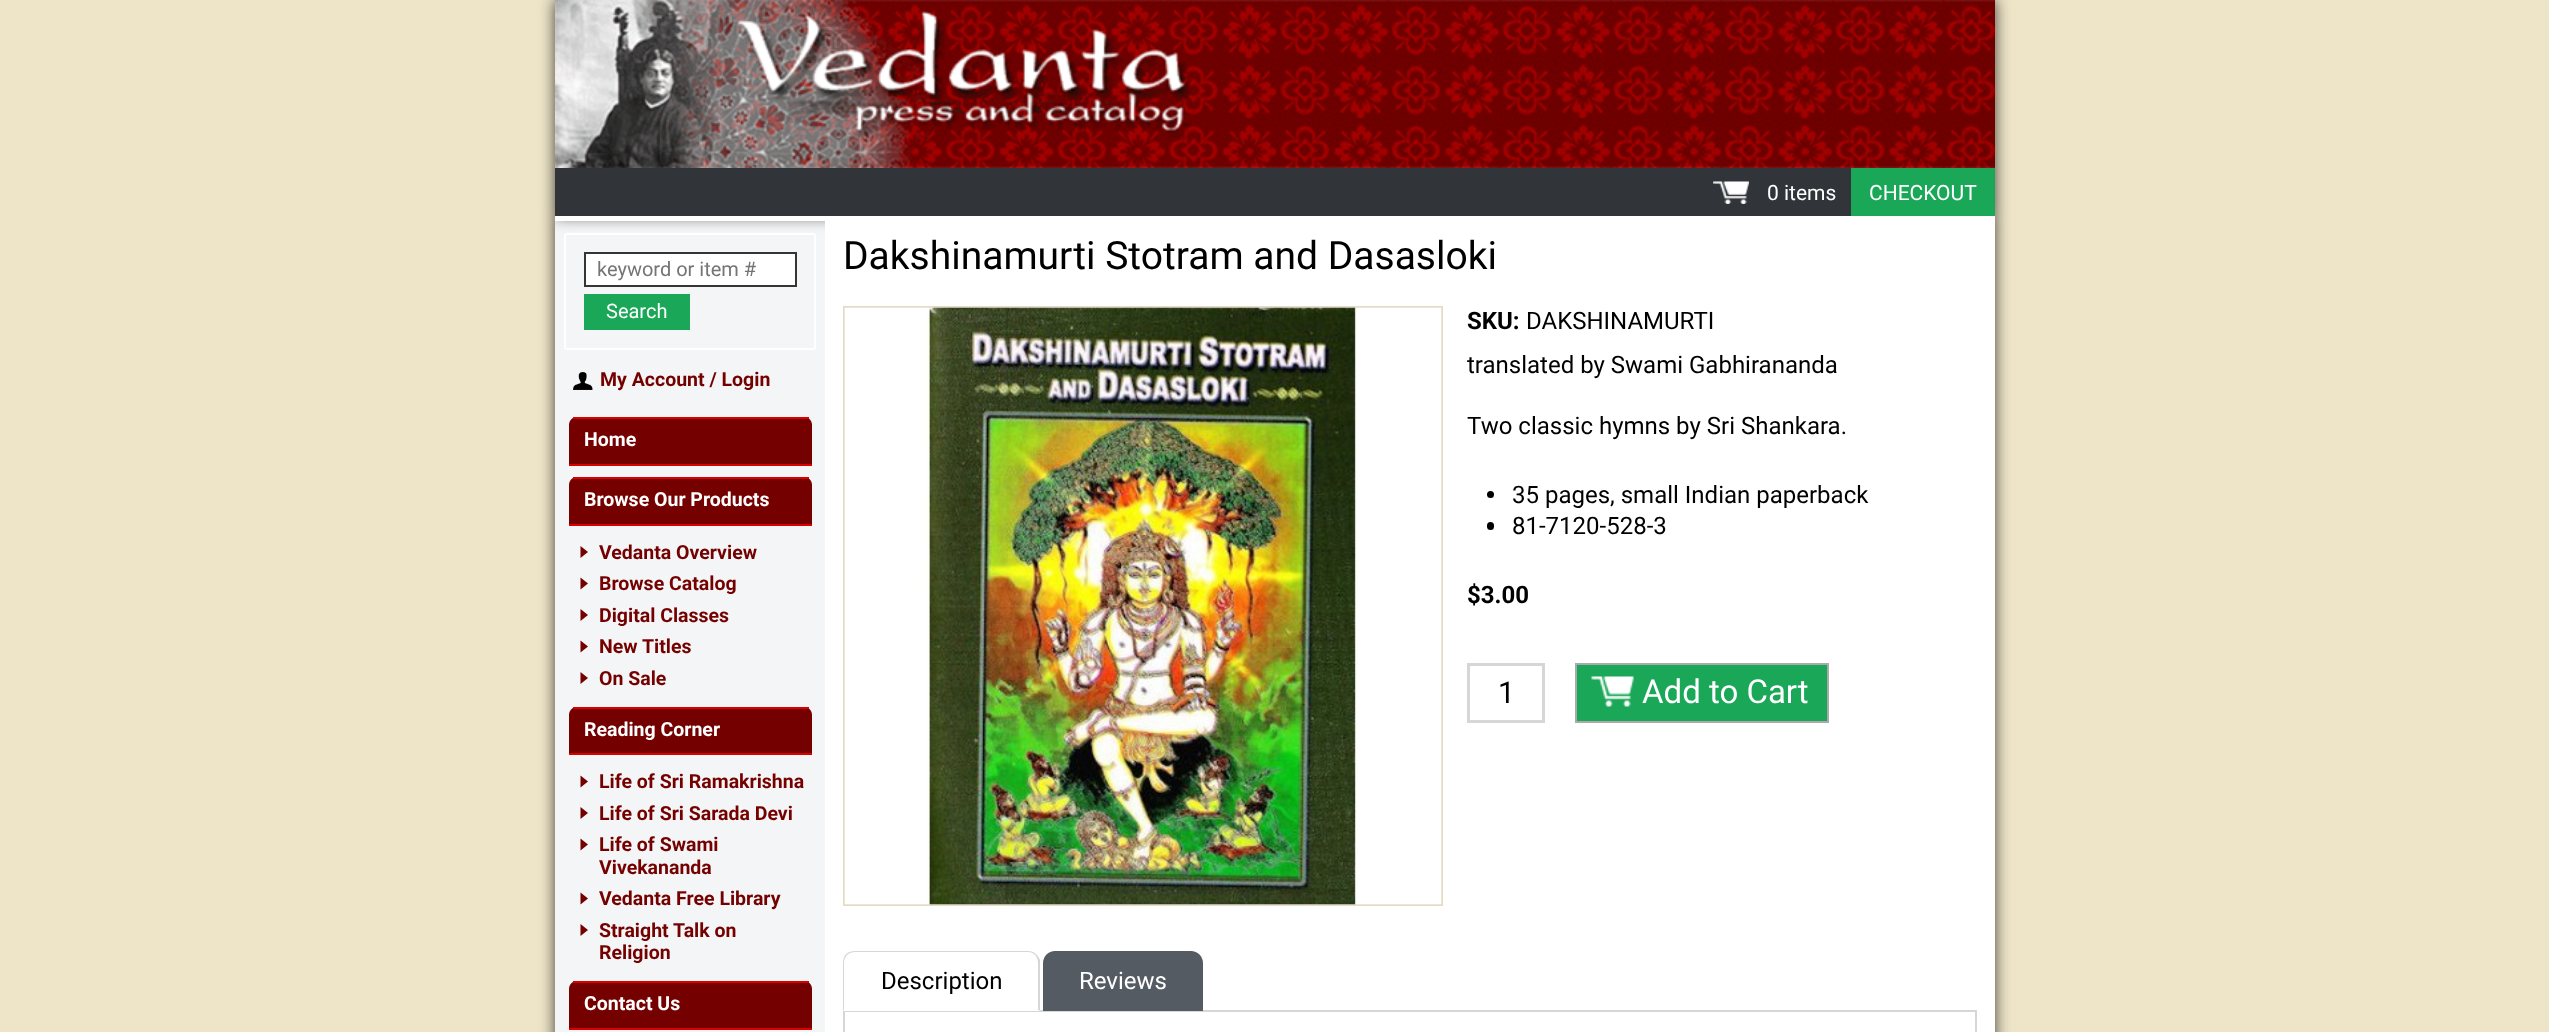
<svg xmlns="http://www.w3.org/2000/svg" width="2549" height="1032">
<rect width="100%" height="100%" fill="#eee5c8"/>
<rect x="555" y="216" width="1440" height="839" fill="#000000bf" filter="blur(7.5px)"/>
<rect x="555" y="221" width="270" height="811" fill="#f4f5f6"/>
<rect x="555" width="1440" height="216" fill="#000000bf" filter="blur(7.5px)"/>
<rect x="555" y="168" width="1296" height="48" fill="#31353a"/>
<image x="555" y="0" width="1440" height="168" href="media/1.png"/>
<image x="1713" y="181" width="36" height="23" href="media/2.png"/>
<text x="1767" y="200" style="font-family:Roboto;font-size:21px;fill:#fff">0 items</text>
<rect x="1851" y="168" width="144" height="48" fill="#1aa758"/>
<text x="1869" y="200" style="font-family:Roboto;font-size:21px;fill:#fff">CHECKOUT</text>
<rect x="555" y="216" width="270" height="5" fill="#fff"/>
<rect x="565" y="234" width="250" height="115" rx="2" fill="none" stroke="#fff" stroke-width="2"/>
<rect x="585" y="253" width="211" height="33" fill="#fff" stroke="#353535" stroke-width="2"/>
<text x="597" y="276" style="font-family:Roboto;font-size:20px;fill:#757575">keyword or item #</text>
<rect x="584" y="294" width="106" height="36" fill="#1aa758"/>
<text x="606" y="318" style="font-family:Roboto;font-size:20px;fill:#fff">Search</text>
<image x="573" y="372" width="20" height="18" href="media/3.png"/>
<text x="600" y="386" style="font-family:Roboto;font-size:19.5px;font-weight:bold;fill:#750000">My Account / Login</text>
<path d="M577 417h227c4.5 0 8 3.5 8 8v40h-243v-40c0-4.5 3.5-8 8-8z" fill="#750000"/>
<rect x="573" y="417" width="236" height="2" fill="#db0000"/>
<rect x="569" y="464" width="243" height="2" fill="#db0000"/>
<text x="584" y="446" style="font-family:Roboto;font-size:19.5px;font-weight:bold;fill:#fff">Home</text>
<path d="M577 477h227c4.5 0 8 3.5 8 8v40h-243v-40c0-4.5 3.5-8 8-8z" fill="#750000"/>
<rect x="573" y="477" width="236" height="2" fill="#db0000"/>
<rect x="569" y="524" width="243" height="2" fill="#db0000"/>
<text x="584" y="506" style="font-family:Roboto;font-size:19.5px;font-weight:bold;fill:#fff">Browse Our Products</text>
<path d="M580.5 558v-12l7.5 6z" fill="#750000"/>
<text x="599" y="559" style="font-family:Roboto;font-size:19.5px;font-weight:bold;fill:#750000">Vedanta Overview</text>
<path d="M580.5 589.5v-12l7.5 6z" fill="#750000"/>
<text x="599" y="590" style="font-family:Roboto;font-size:19.5px;font-weight:bold;fill:#750000">Browse Catalog</text>
<path d="M580.5 621v-12l7.5 6z" fill="#750000"/>
<text x="599" y="622" style="font-family:Roboto;font-size:19.5px;font-weight:bold;fill:#750000">Digital Classes</text>
<path d="M580.5 652.5v-12l7.5 6z" fill="#750000"/>
<text x="599" y="653" style="font-family:Roboto;font-size:19.5px;font-weight:bold;fill:#750000">New Titles</text>
<path d="M580.5 684v-12l7.5 6z" fill="#750000"/>
<text x="599" y="685" style="font-family:Roboto;font-size:19.5px;font-weight:bold;fill:#750000">On Sale</text>
<path d="M577 707h227c4.5 0 8 3.5 8 8v40h-243v-40c0-4.5 3.5-8 8-8z" fill="#750000"/>
<rect x="573" y="707" width="236" height="2" fill="#db0000"/>
<rect x="569" y="753" width="243" height="2" fill="#db0000"/>
<text x="584" y="736" style="font-family:Roboto;font-size:19.5px;font-weight:bold;fill:#fff">Reading Corner</text>
<path d="M580.5 787.5v-12l7.5 6z" fill="#750000"/>
<text x="599" y="788" style="font-family:Roboto;font-size:19.5px;font-weight:bold;fill:#750000">Life of Sri Ramakrishna</text>
<path d="M580.5 819v-12l7.5 6z" fill="#750000"/>
<text x="599" y="820" style="font-family:Roboto;font-size:19.5px;font-weight:bold;fill:#750000">Life of Sri Sarada Devi</text>
<path d="M580.5 850.5v-12l7.5 6z" fill="#750000"/>
<text x="599" y="851" style="font-family:Roboto;font-size:19.5px;font-weight:bold;fill:#750000">Life of Swami</text>
<text x="599" y="874" style="font-family:Roboto;font-size:19.5px;font-weight:bold;fill:#750000">Vivekananda</text>
<path d="M580.5 904.5v-12l7.5 6z" fill="#750000"/>
<text x="599" y="905" style="font-family:Roboto;font-size:19.5px;font-weight:bold;fill:#750000">Vedanta Free Library</text>
<path d="M580.5 936v-12l7.5 6z" fill="#750000"/>
<text x="599" y="937" style="font-family:Roboto;font-size:19.5px;font-weight:bold;fill:#750000">Straight Talk on</text>
<text x="599" y="959" style="font-family:Roboto;font-size:19.5px;font-weight:bold;fill:#750000">Religion</text>
<path d="M577 981h227c4.5 0 8 3.5 8 8v40h-243v-40c0-4.5 3.5-8 8-8z" fill="#750000"/>
<rect x="573" y="981" width="236" height="2" fill="#db0000"/>
<rect x="569" y="1028" width="243" height="2" fill="#db0000"/>
<text x="584" y="1010" style="font-family:Roboto;font-size:19.5px;font-weight:bold;fill:#fff">Contact Us</text>
<rect x="825" y="216" width="1170" height="816" fill="#fff"/>
<text x="843" y="269" style="font-family:Roboto;font-size:39px;fill:#000">Dakshinamurti Stotram and Dasasloki</text>
<rect x="844" y="307" width="598" height="598" fill="none" stroke="#e6dbc7" stroke-width="2"/>
<image x="844" y="307" width="598" height="598" href="media/4.png"/>
<text x="1467" y="329" style="font-family:Roboto;font-size:24px;font-weight:bold;fill:#000">SKU:</text>
<text x="1526" y="329" style="font-family:Roboto;font-size:24px;fill:#000">DAKSHINAMURTI</text>
<text x="1467" y="373" style="font-family:Roboto;font-size:24px;fill:#000">translated by Swami Gabhirananda</text>
<text x="1467" y="434" style="font-family:Roboto;font-size:24px;fill:#000">Two classic hymns by Sri Shankara.</text>
<circle cx="1490.5" cy="494.5" r="3.5" fill="#000"/>
<text x="1512" y="503" style="font-family:Roboto;font-size:24px;fill:#000">35 pages, small Indian paperback</text>
<rect x="1487" y="522" width="7" height="8" rx="3.5" fill="#000"/>
<text x="1512" y="534" style="font-family:Roboto;font-size:24px;fill:#000">81-7120-528-3</text>
<text x="1467" y="603" style="font-family:Roboto;font-size:24px;font-weight:bold;fill:#000">$3.00</text>
<rect x="1468.5" y="664.5" width="75" height="57" fill="none" stroke="#d7d6d6" stroke-width="3"/>
<text x="1498" y="703" style="font-family:Roboto;font-size:30px;fill:#000">1</text>
<rect x="1577" y="665" width="250" height="56" fill="#1aa758"/>
<image x="1591" y="676" width="43" height="31" href="media/5.png"/>
<rect x="1576" y="664" width="252" height="58" fill="none" stroke="#aaa" stroke-width="2"/>
<text x="1642" y="703" style="font-family:Roboto;font-size:33px;fill:#fff">Add to Cart</text>
<rect x="844" y="1011" width="1132" height="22" fill="none" stroke="#d7d6d6" stroke-width="2"/>
<path d="M855 951h173c6.5 0 12 5.5 12 12v48h-197v-48c0-6.5 5.5-12 12-12z" fill="#fff"/>
<path d="M855 951c-3 0-7 1-9 3l1 1c2-2 5-3 8-3h173c3 0 5 1 7 3l1-1c-2-2-5-3-8-3z" fill="#d7d6d6"/>
<path d="M1040 960v51l-2-1v-47c0-3-1-6-3-8l1-1c2 2 3 4 4 6z" fill="#d7d6d6"/>
<path d="M1040 1011l-2-1h-194l-1 1z" fill="#fff"/>
<path d="M843 1011l1-1v-47c0-3 1-6 3-8l-1-1c-2 2-3 6-3 9z" fill="#d7d6d6"/>
<text x="881" y="989" style="font-family:Roboto;font-size:24px;fill:#000">Description</text>
<path d="M1055 951h136c6.5 0 12 5.5 12 12v48h-160v-48c0-6.5 5.5-12 12-12z" fill="#545b63"/>
<text x="1079" y="989" style="font-family:Roboto;font-size:24px;fill:#fff">Reviews</text>
</svg>
